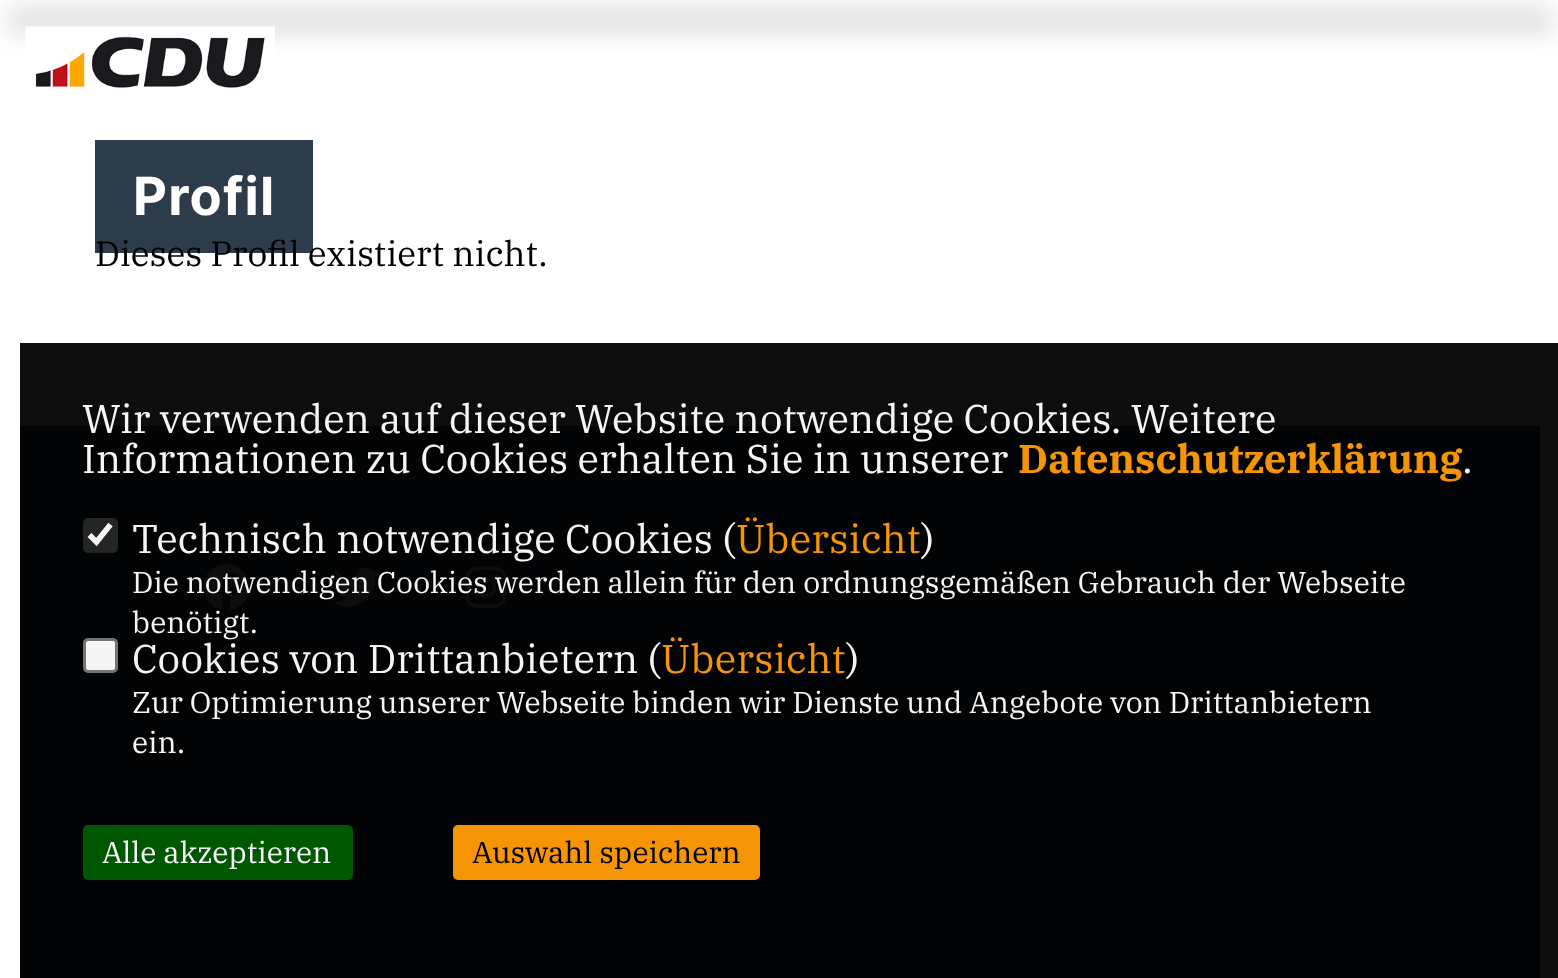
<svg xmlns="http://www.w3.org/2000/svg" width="1558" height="978">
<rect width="100%" height="100%" fill="#fff"/>
<rect x="20" y="343" width="1538" height="635" fill="#0d0d0d"/>
<rect x="8" y="8" width="1545" height="25" fill="#00000021" filter="blur(12.5px)"/>
<image x="25" y="26" width="250" height="62" href="media/1.png"/>
<rect x="95" y="140" width="218" height="113" fill="#2d3c4b"/>
<text x="133" y="215" style="font-family:Inter;font-size:52.5px;font-weight:bold;letter-spacing:1.25px;fill:#fff">Profil</text>
<text x="95" y="266" style="font-family:IBM Plex Serif;font-size:35px;fill:#000">Dieses Profil existiert nicht.</text>
<rect x="20" y="426" width="1520" height="552" fill="#020304"/>
<text x="82" y="433" style="font-family:IBM Plex Serif;font-size:40px;fill:#f5f5f6">Wir verwenden auf dieser Website notwendige Cookies. Weitere</text>
<text x="82" y="473" style="font-family:IBM Plex Serif;font-size:40px;fill:#f5f5f6">Informationen zu Cookies erhalten Sie in unserer</text>
<text x="1018" y="473" style="font-family:IBM Plex Serif;font-size:40px;font-weight:bold;fill:#f59404">Datenschutzerklärung</text>
<text x="1462" y="473" style="font-family:IBM Plex Serif;font-size:40px;fill:#f5f5f6">.</text>
<rect x="83" y="518" width="35" height="35" rx="5" fill="#242525"/>
<path d="M89.5 535l7 7l14-17.5" fill="none" stroke="#f5f5f6" stroke-width="5.6"/>
<text x="132" y="553" style="font-family:IBM Plex Serif;font-size:40px;fill:#f5f5f6">Technisch notwendige Cookies (</text>
<text x="736" y="553" style="font-family:IBM Plex Serif;font-size:40px;fill:#f59404">Übersicht</text>
<text x="921" y="553" style="font-family:IBM Plex Serif;font-size:40px;fill:#f5f5f6">)</text>
<image x="203" y="564" width="47" height="46" href="media/2.png"/>
<image x="332" y="567" width="48" height="40" href="media/3.png"/>
<image x="465" y="566" width="42" height="42" href="media/4.png"/>
<text x="132" y="593" style="font-family:IBM Plex Serif;font-size:30px;fill:#f5f5f6">Die notwendigen Cookies werden allein für den ordnungsgemäßen Gebrauch der Webseite</text>
<text x="132" y="633" style="font-family:IBM Plex Serif;font-size:30px;fill:#f5f5f6">benötigt.</text>
<rect x="84.5" y="639.5" width="32" height="32" rx="3.5" fill="#f5f5f6" stroke="#727374" stroke-width="3"/>
<text x="132" y="673" style="font-family:IBM Plex Serif;font-size:40px;fill:#f5f5f6">Cookies von Drittanbietern (</text>
<text x="661" y="673" style="font-family:IBM Plex Serif;font-size:40px;fill:#f59404">Übersicht</text>
<text x="846" y="673" style="font-family:IBM Plex Serif;font-size:40px;fill:#f5f5f6">)</text>
<text x="132" y="713" style="font-family:IBM Plex Serif;font-size:30px;fill:#f5f5f6">Zur Optimierung unserer Webseite binden wir Dienste und Angebote von Drittanbietern</text>
<text x="132" y="753" style="font-family:IBM Plex Serif;font-size:30px;fill:#f5f5f6">ein.</text>
<rect x="83" y="825" width="270" height="55" rx="5" fill="#005c02f2"/>
<text x="102" y="863" style="font-family:IBM Plex Serif;font-size:30px;fill:#f5f5f6">Alle akzeptieren</text>
<rect x="453" y="825" width="307" height="55" rx="5" fill="#f59404"/>
<text x="472" y="863" style="font-family:IBM Plex Serif;font-size:30px;fill:#000">Auswahl speichern</text>
</svg>
